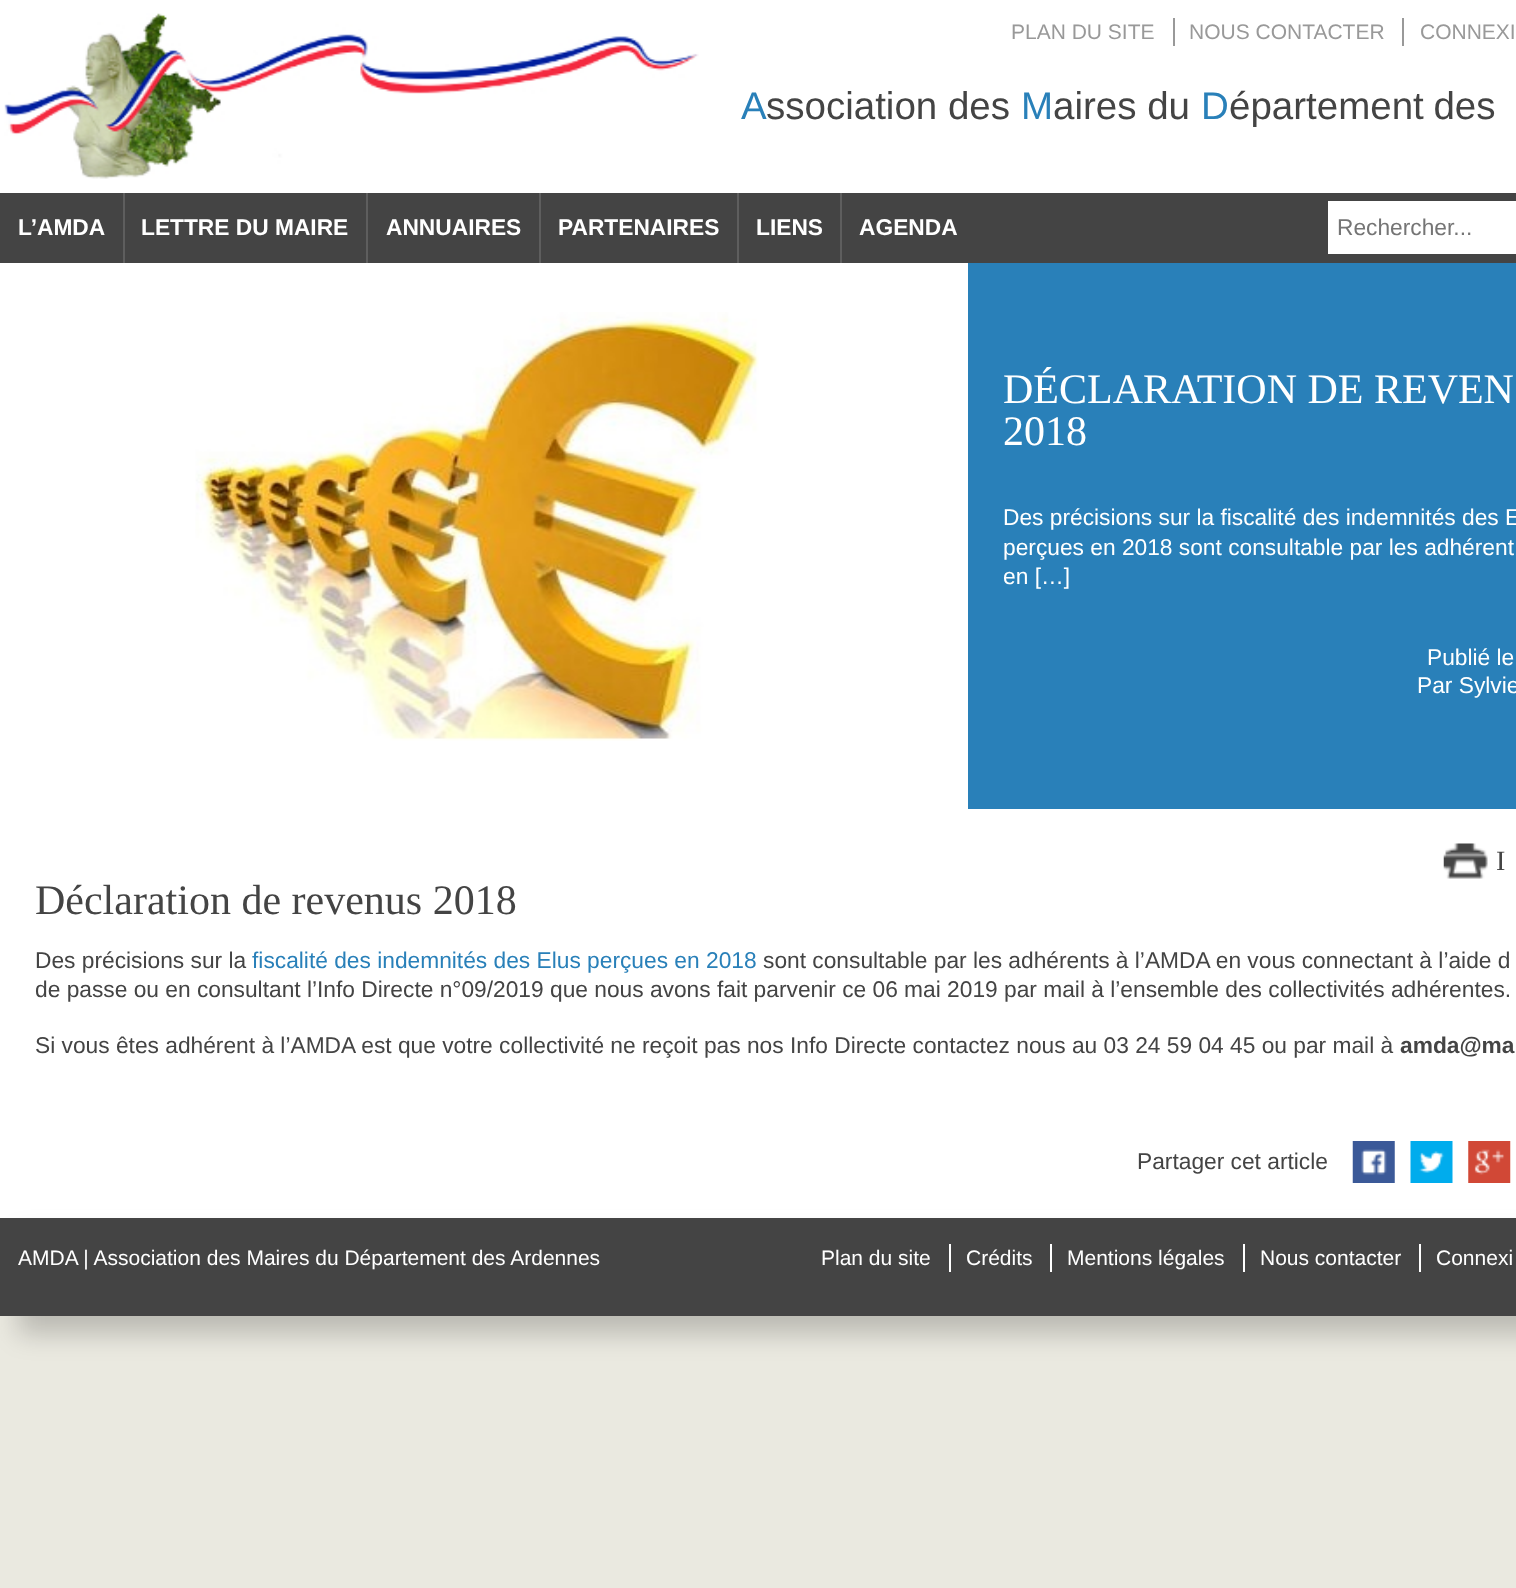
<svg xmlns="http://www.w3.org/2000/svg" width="1516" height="1588">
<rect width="100%" height="100%" fill="#eae9e0"/>
<rect width="1516" height="193" fill="#fff"/>
<image x="4" y="13" width="695" height="166" href="media/1.png"/>
<rect x="1173" y="18" width="2" height="28" fill="#999"/>
<text x="1011" y="39" style="font-family:Liberation Sans;font-size:21px;fill:#999">PLAN DU SITE</text>
<rect x="1402" y="18" width="2" height="28" fill="#999"/>
<text x="1189" y="39" style="font-family:Liberation Sans;font-size:21px;fill:#999">NOUS CONTACTER</text>
<text x="1420" y="39" style="font-family:Liberation Sans;font-size:21px;fill:#999">CONNEXI</text>
<text x="741" y="119" style="font-family:Liberation Sans;font-size:38.5px;fill:#2980b9">A</text>
<text x="766" y="119" style="font-family:Liberation Sans;font-size:38.5px;fill:#444">ssociation des</text>
<text x="1021" y="119" style="font-family:Liberation Sans;font-size:38.5px;fill:#2980b9">M</text>
<text x="1053" y="119" style="font-family:Liberation Sans;font-size:38.5px;fill:#444">aires du</text>
<text x="1201" y="119" style="font-family:Liberation Sans;font-size:38.5px;fill:#2980b9">D</text>
<text x="1229" y="119" word-spacing="-1" style="font-family:Liberation Sans;font-size:38.5px;fill:#444">épartement des</text>
<rect y="193" width="1516" height="70" fill="#444"/>
<text x="18" y="235" style="font-family:Liberation Sans;font-size:22.75px;font-weight:bold;fill:#fff">L’AMDA</text>
<rect x="123" y="193" width="2" height="70" fill="#5e5e5e"/>
<text x="141" y="235" style="font-family:Liberation Sans;font-size:22.75px;font-weight:bold;fill:#fff">LETTRE DU MAIRE</text>
<rect x="366" y="193" width="2" height="70" fill="#5e5e5e"/>
<text x="386" y="235" style="font-family:Liberation Sans;font-size:22.75px;font-weight:bold;fill:#fff">ANNUAIRES</text>
<rect x="539" y="193" width="2" height="70" fill="#5e5e5e"/>
<text x="558" y="235" style="font-family:Liberation Sans;font-size:22.75px;font-weight:bold;fill:#fff">PARTENAIRES</text>
<rect x="737" y="193" width="2" height="70" fill="#5e5e5e"/>
<text x="756" y="235" style="font-family:Liberation Sans;font-size:22.75px;font-weight:bold;fill:#fff">LIENS</text>
<rect x="840" y="193" width="2" height="70" fill="#5e5e5e"/>
<text x="859" y="235" style="font-family:Liberation Sans;font-size:22.75px;font-weight:bold;fill:#fff">AGENDA</text>
<rect x="1328" y="201" width="188" height="53" fill="#fff"/>
<text x="1337" y="235" style="font-family:Liberation Sans;font-size:22.75px;fill:#757575">Rechercher...</text>
<rect y="263" width="1516" height="955" fill="#fff"/>
<image x="195" y="312" width="564" height="429" href="media/2.png"/>
<rect x="968" y="263" width="548" height="546" fill="#2980b9"/>
<text x="1003" y="403" style="font-family:Liberation Serif;font-size:42px;fill:#fff">DÉCLARATION DE REVEN</text>
<text x="1003" y="445" style="font-family:Liberation Serif;font-size:42px;fill:#fff">2018</text>
<text x="1003" y="525" style="font-family:Liberation Sans;font-size:22.75px;fill:#fff">Des précisions sur la fiscalité des indemnités des E</text>
<text x="1003" y="555" style="font-family:Liberation Sans;font-size:22.75px;fill:#fff">perçues en 2018 sont consultable par les adhérent</text>
<text x="1003" y="584" style="font-family:Liberation Sans;font-size:22.75px;fill:#fff">en […]</text>
<text x="1427" y="665" style="font-family:Liberation Sans;font-size:22.75px;fill:#fff">Publié le</text>
<text x="1417" y="693" style="font-family:Liberation Sans;font-size:22.75px;fill:#fff">Par Sylvie</text>
<image x="1443" y="843" width="45" height="36" href="media/3.png"/>
<text x="1496" y="870" style="font-family:Liberation Serif;font-size:28px;fill:#444">I</text>
<text x="35" y="914" style="font-family:Liberation Serif;font-size:42px;fill:#444">Déclaration de revenus 2018</text>
<text x="35" y="968" style="font-family:Liberation Sans;font-size:22.75px;fill:#444">Des précisions sur la</text>
<text x="252" y="968" style="font-family:Liberation Sans;font-size:22.75px;fill:#2980b9">fiscalité des indemnités des Elus perçues en 2018</text>
<text x="763" y="968" style="font-family:Liberation Sans;font-size:22.75px;fill:#444">sont consultable par les adhérents à l’AMDA en vous connectant à l’aide d</text>
<text x="35" y="997" style="font-family:Liberation Sans;font-size:22.75px;fill:#444">de passe ou en consultant l’Info Directe n°09/2019 que nous avons fait parvenir ce 06 mai 2019 par mail à l’ensemble des collectivités adhérentes.</text>
<text x="35" y="1053" style="font-family:Liberation Sans;font-size:22.75px;fill:#444">Si vous êtes adhérent à l’AMDA est que votre collectivité ne reçoit pas nos Info Directe contactez nous au 03 24 59 04 45 ou par mail à</text>
<text x="1400" y="1053" style="font-family:Liberation Sans;font-size:22.75px;font-weight:bold;fill:#444">amda@ma</text>
<text x="1137" y="1169" style="font-family:Liberation Sans;font-size:22.75px;fill:#444">Partager cet article</text>
<image x="1352" y="1141" width="43" height="42" href="media/4.png"/>
<image x="1410" y="1141" width="43" height="42" href="media/5.png"/>
<image x="1468" y="1141" width="43" height="42" href="media/6.png"/>
<rect x="18" y="1236" width="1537" height="98" fill="#00000033" filter="blur(13px)"/>
<rect y="1218" width="1516" height="98" fill="#444"/>
<text x="18" y="1265" style="font-family:Liberation Sans;font-size:21px;fill:#fff">AMDA | Association des Maires du Département des Ardennes</text>
<rect x="949" y="1244" width="2" height="28" fill="#fff"/>
<text x="821" y="1265" style="font-family:Liberation Sans;font-size:21px;fill:#fff">Plan du site</text>
<rect x="1050" y="1244" width="2" height="28" fill="#fff"/>
<text x="966" y="1265" style="font-family:Liberation Sans;font-size:21px;fill:#fff">Crédits</text>
<rect x="1243" y="1244" width="2" height="28" fill="#fff"/>
<text x="1067" y="1265" style="font-family:Liberation Sans;font-size:21px;fill:#fff">Mentions légales</text>
<rect x="1419" y="1244" width="2" height="28" fill="#fff"/>
<text x="1260" y="1265" style="font-family:Liberation Sans;font-size:21px;fill:#fff">Nous contacter</text>
<text x="1436" y="1265" style="font-family:Liberation Sans;font-size:21px;fill:#fff">Connexi</text>
</svg>
